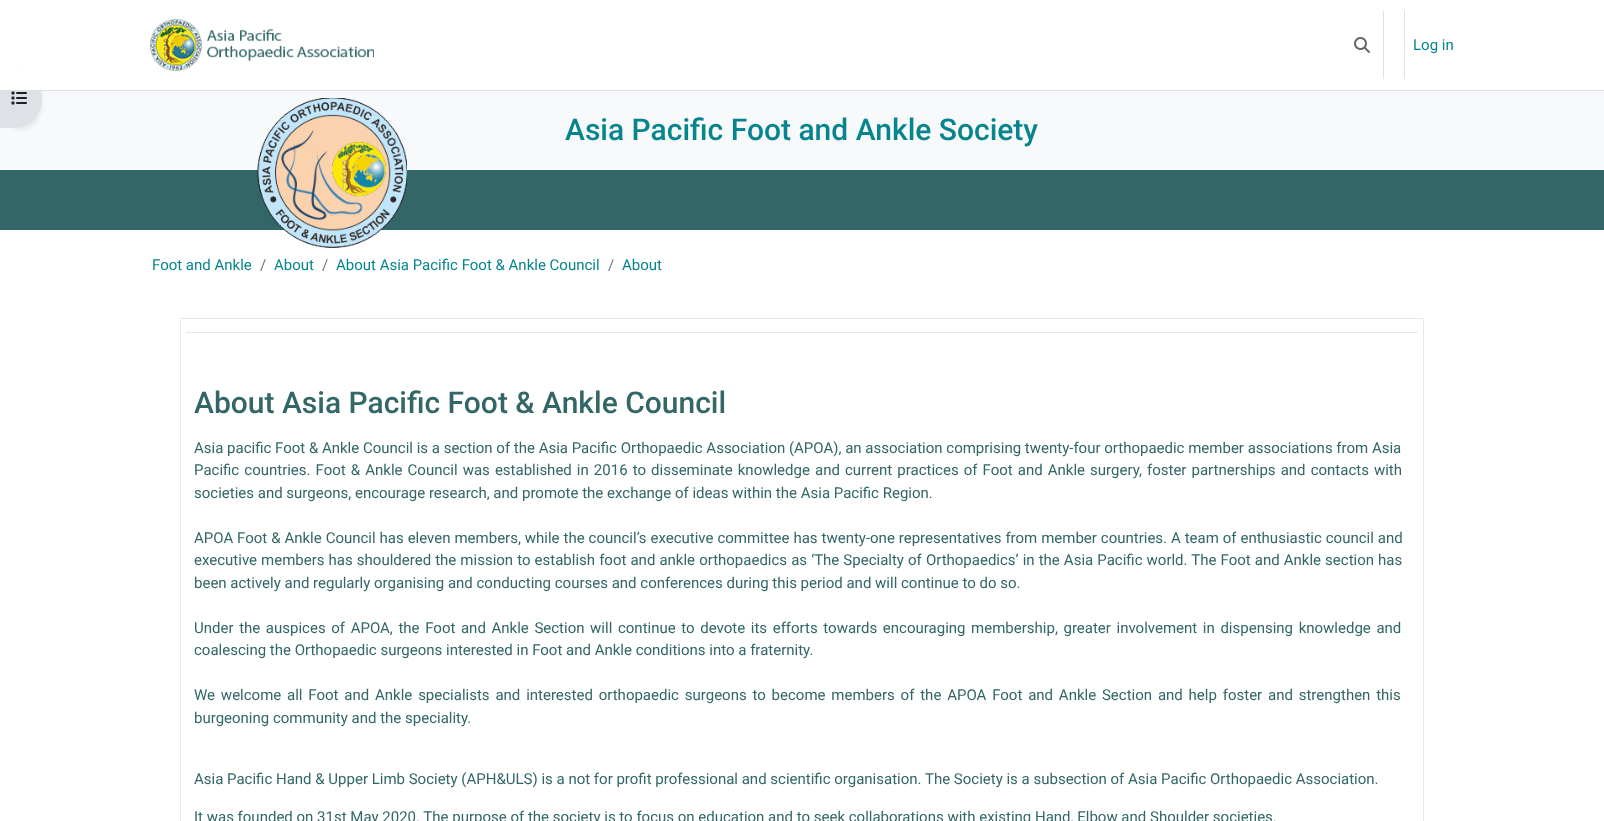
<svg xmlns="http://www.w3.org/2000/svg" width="1604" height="821">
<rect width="100%" height="100%" fill="#fff"/>
<rect y="91" width="1604" height="79" fill="#f8f9fa"/>
<rect y="73" width="42" height="57" rx="28" fill="#00000012" filter="blur(2px)"/>
<path d="M0 71h14c15.5 0 28 12.5 28 28v1c0 15.5-12.5 28-28 28h-14z" fill="#dee2e6"/>
<rect y="71" width="42" height="19" fill="#fff"/>
<rect x="40" y="90" width="1564" height="1" fill="#dee2e6"/>
<image x="150" y="19" width="224" height="52" href="media/1.png"/>
<image x="1354" y="37" width="16" height="16" href="media/2.png"/>
<rect x="1383" y="11" width="1" height="68" fill="#dee2e6"/>
<rect x="1404" y="11" width="1" height="68" fill="#dee2e6"/>
<text x="1413" y="50" style="font-family:Roboto;font-size:15px;fill:#06858e">Log in</text>
<image x="11" y="91" width="16" height="14" href="media/3.png"/>
<rect y="170" width="1604" height="60" fill="#336667"/>
<image x="257" y="98" width="150" height="150" href="media/4.png"/>
<text x="565" y="140" style="font-family:Roboto;font-size:30px;font-weight:500;fill:#06858e">Asia Pacific Foot and Ankle Society</text>
<text x="152" y="270" style="font-family:Roboto;font-size:15px;fill:#06858e">Foot and Ankle</text>
<text x="260" y="270" style="font-family:Roboto;font-size:15px;fill:#6a737b">/</text>
<text x="274" y="270" style="font-family:Roboto;font-size:15px;fill:#06858e">About</text>
<text x="322" y="270" style="font-family:Roboto;font-size:15px;fill:#6a737b">/</text>
<text x="336" y="270" style="font-family:Roboto;font-size:15px;fill:#06858e">About Asia Pacific Foot &amp; Ankle Council</text>
<text x="608" y="270" style="font-family:Roboto;font-size:15px;fill:#6a737b">/</text>
<text x="622" y="270" style="font-family:Roboto;font-size:15px;fill:#06858e">About</text>
<rect x="180.5" y="318.5" width="1243" height="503" fill="none" stroke="#e6e9e6"/>
<rect x="186" y="332" width="1232" height="1" fill="#e6e9e6"/>
<text x="194" y="413" style="font-family:Roboto;font-size:30px;font-weight:500;fill:#336667">About Asia Pacific Foot &amp; Ankle Council</text>
<text x="194" y="453" style="font-family:Roboto;font-size:15px;fill:#336667">Asia pacific Foot &amp; Ankle Council is a section of the Asia Pacific Orthopaedic Association (APOA), an association comprising twenty-four orthopaedic member associations from Asia</text>
<text x="194" y="475" word-spacing="1.35" style="font-family:Roboto;font-size:15px;fill:#336667">Pacific countries. Foot &amp; Ankle Council was established in 2016 to disseminate knowledge and current practices of Foot and Ankle surgery, foster partnerships and contacts with</text>
<text x="194" y="498" style="font-family:Roboto;font-size:15px;fill:#336667">societies and surgeons, encourage research, and promote the exchange of ideas within the Asia Pacific Region.</text>
<text x="194" y="543" word-spacing="0.2" style="font-family:Roboto;font-size:15px;fill:#336667">APOA Foot &amp; Ankle Council has eleven members, while the council’s executive committee has twenty-one representatives from member countries. A team of enthusiastic council and</text>
<text x="194" y="565" word-spacing="0.35" style="font-family:Roboto;font-size:15px;fill:#336667">executive members has shouldered the mission to establish foot and ankle orthopaedics as ‘The Specialty of Orthopaedics’ in the Asia Pacific world. The Foot and Ankle section has</text>
<text x="194" y="588" style="font-family:Roboto;font-size:15px;fill:#336667">been actively and regularly organising and conducting courses and conferences during this period and will continue to do so.</text>
<text x="194" y="633" word-spacing="1.9" style="font-family:Roboto;font-size:15px;fill:#336667">Under the auspices of APOA, the Foot and Ankle Section will continue to devote its efforts towards encouraging membership, greater involvement in dispensing knowledge and</text>
<text x="194" y="655" style="font-family:Roboto;font-size:15px;fill:#336667">coalescing the Orthopaedic surgeons interested in Foot and Ankle conditions into a fraternity.</text>
<text x="194" y="700" word-spacing="2.1" style="font-family:Roboto;font-size:15px;fill:#336667">We welcome all Foot and Ankle specialists and interested orthopaedic surgeons to become members of the APOA Foot and Ankle Section and help foster and strengthen this</text>
<text x="194" y="723" style="font-family:Roboto;font-size:15px;fill:#336667">burgeoning community and the speciality.</text>
<text x="194" y="784" style="font-family:Roboto;font-size:15px;fill:#336667">Asia Pacific Hand &amp; Upper Limb Society (APH&amp;ULS) is a not for profit professional and scientific organisation. The Society is a subsection of Asia Pacific Orthopaedic Association.</text>
<text x="194" y="822" style="font-family:Roboto;font-size:15px;fill:#336667">It was founded on 31st May 2020. The purpose of the society is to focus on education and to seek collaborations with existing Hand, Elbow and Shoulder societies.</text>
</svg>
